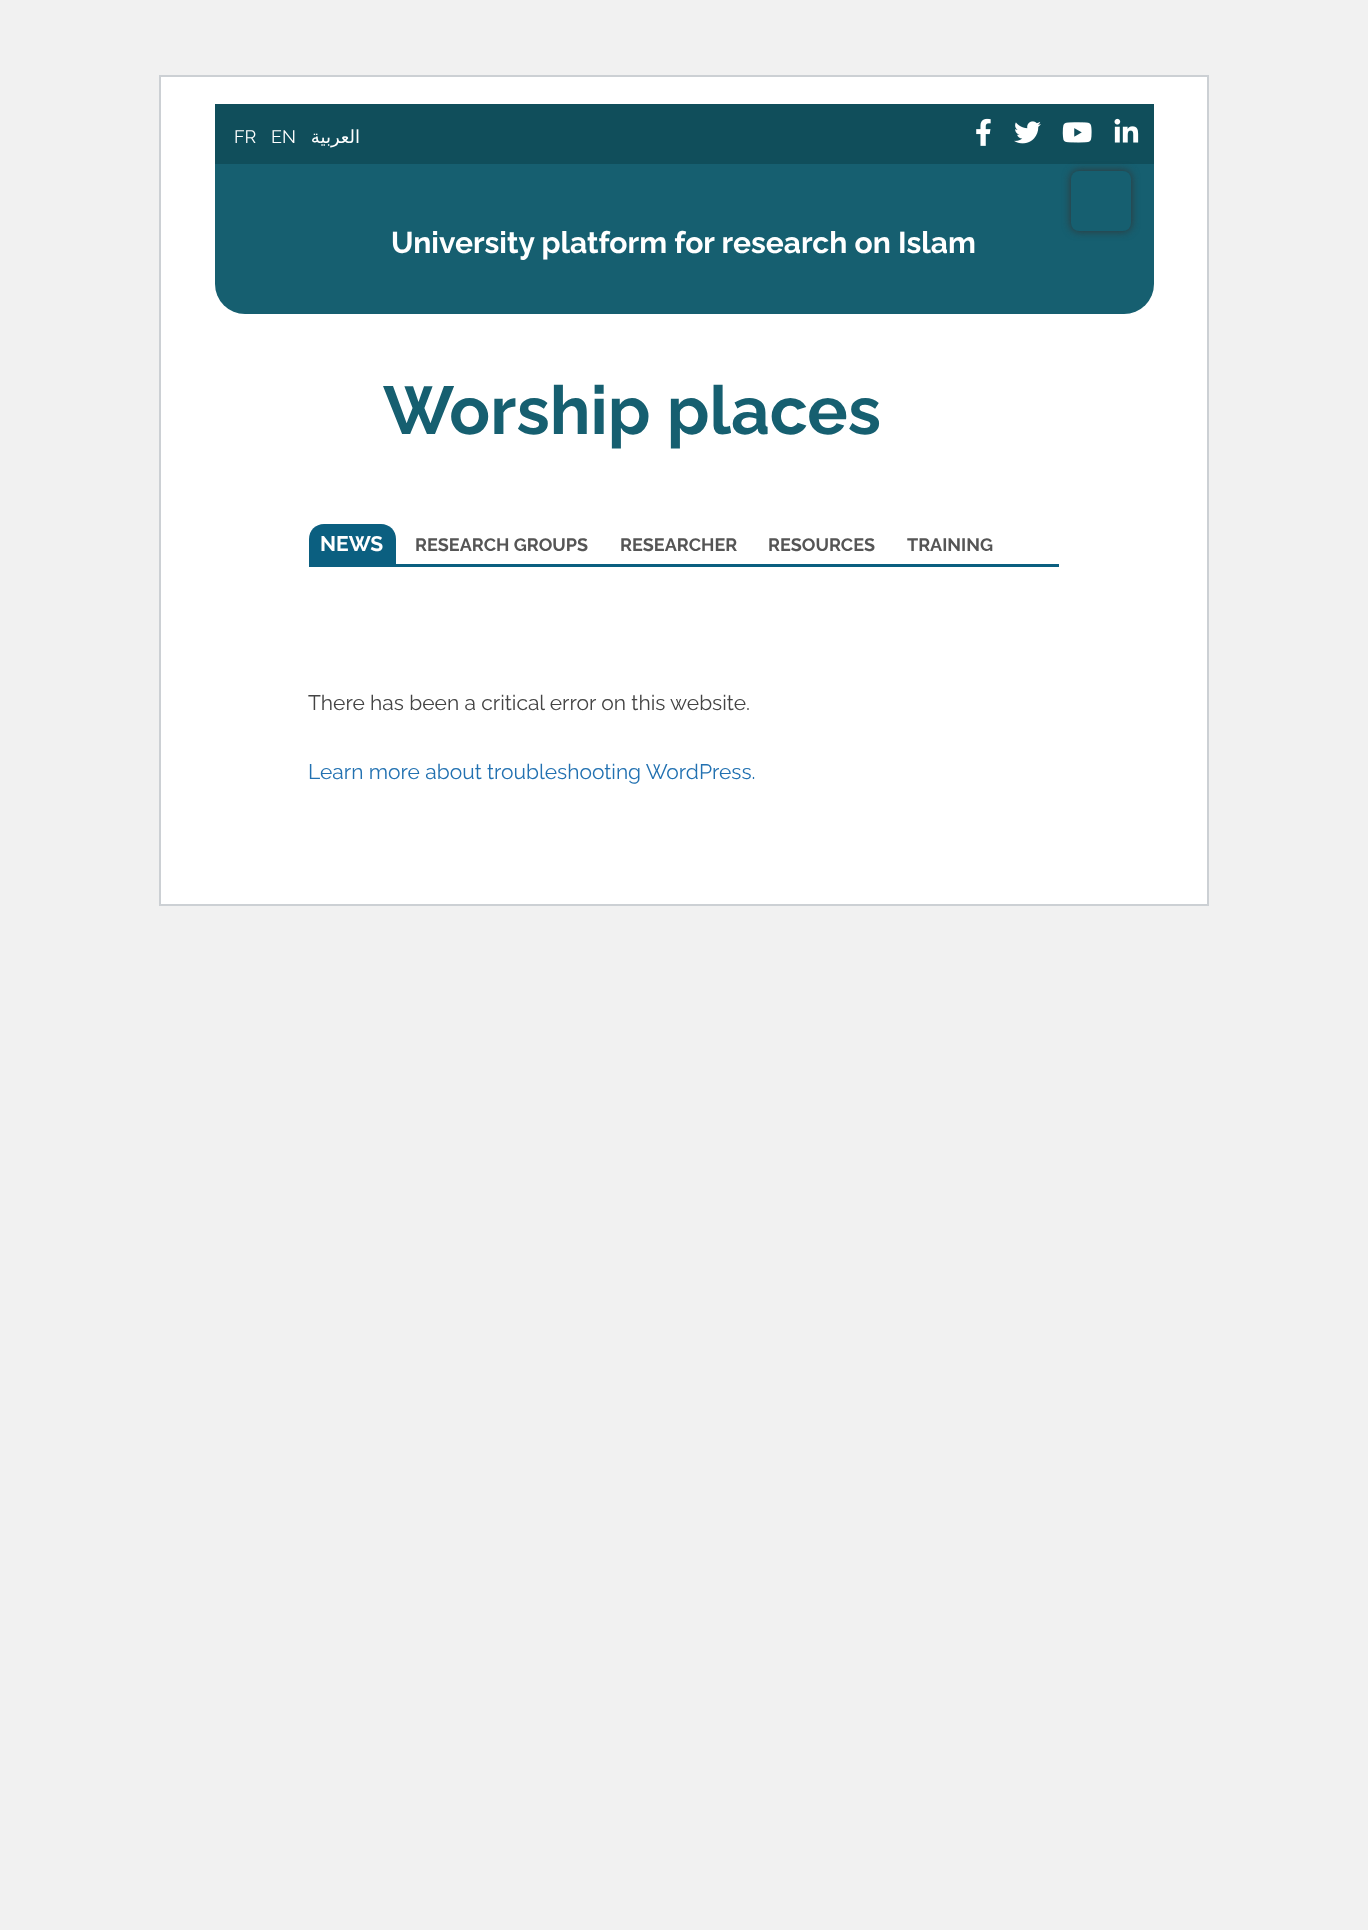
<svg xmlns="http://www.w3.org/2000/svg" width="1368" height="1930">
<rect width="100%" height="100%" fill="#f1f1f1"/>
<rect x="160" y="76" width="1048" height="829" fill="#fff" stroke="#ccd0d4" stroke-width="2"/>
<rect x="215" y="104" width="939" height="210" rx="30" fill="#165f70"/>
<rect x="215" y="104" width="939" height="60" fill="#104e5b"/>
<text x="234" y="143" style="font-family:Raleway;font-size:18px;font-weight:100;fill:#fff">FR</text>
<text x="271" y="143" style="font-family:Raleway;font-size:18px;font-weight:100;fill:#fff">EN</text>
<text x="360" y="143" style="font-family:DejaVu Sans;font-size:18px;direction:rtl;fill:#fff">العربية</text>
<image x="976" y="118" width="15" height="28" href="media/1.png"/>
<image x="1014" y="121" width="27" height="23" href="media/2.png"/>
<image x="1062" y="122" width="30" height="21" href="media/3.png"/>
<image x="1114" y="118" width="25" height="25" href="media/4.png"/>
<text x="391" y="253" style="font-family:Raleway;font-size:30px;font-weight:bold;fill:#fff">University platform for research on Islam</text>
<rect x="1071" y="171" width="60" height="60" rx="8" fill="#343434" filter="blur(4px)"/>
<rect x="1071" y="171" width="60" height="60" rx="8" fill="#165f70"/>
<text x="383" y="434" style="font-family:Raleway;font-size:67.5px;font-weight:bold;fill:#165f70">Worship places</text>
<rect x="309" y="564" width="750" height="3" fill="#0b5f80"/>
<path d="M324 524h57c8.5 0 15 6.5 15 15v25h-87v-25c0-8.5 6.5-15 15-15z" fill="#0b5f80"/>
<text x="320" y="551" style="font-family:Raleway;font-size:21px;font-weight:bold;fill:#fff">NEWS</text>
<text x="415" y="551" style="font-family:Raleway;font-size:18px;font-weight:bold;fill:#555">RESEARCH GROUPS</text>
<text x="620" y="551" style="font-family:Raleway;font-size:18px;font-weight:bold;fill:#555">RESEARCHER</text>
<text x="768" y="551" style="font-family:Raleway;font-size:18px;font-weight:bold;fill:#555">RESOURCES</text>
<text x="907" y="551" style="font-family:Raleway;font-size:18px;font-weight:bold;fill:#555">TRAINING</text>
<text x="308" y="710" style="font-family:Raleway;font-size:21px;font-weight:100;fill:#444">There has been a critical error on this website.</text>
<text x="308" y="779" style="font-family:Raleway;font-size:21px;font-weight:100;fill:#2271b1">Learn more about troubleshooting WordPress.</text>
</svg>
